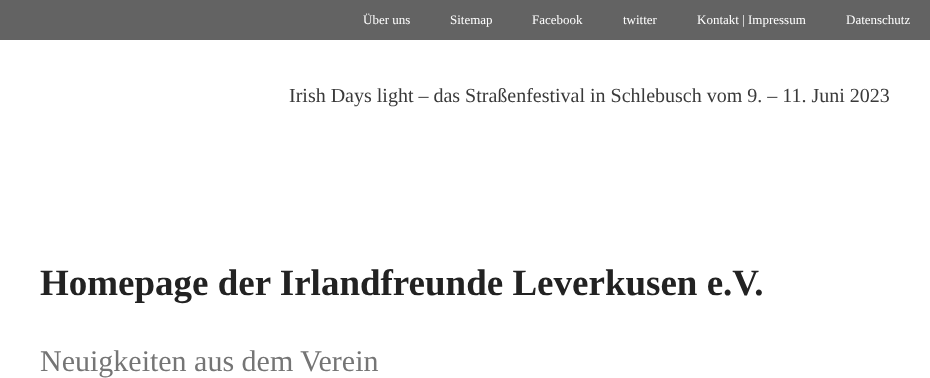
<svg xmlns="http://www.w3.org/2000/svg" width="930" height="378">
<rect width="100%" height="100%" fill="#636363"/>
<text x="363" y="24" style="font-family:Liberation Serif;font-size:13px;fill:#fff">Über uns</text>
<text x="450" y="24" style="font-family:Liberation Serif;font-size:13px;fill:#fff">Sitemap</text>
<text x="532" y="24" style="font-family:Liberation Serif;font-size:13px;fill:#fff">Facebook</text>
<text x="623" y="24" style="font-family:Liberation Serif;font-size:13px;fill:#fff">twitter</text>
<text x="697" y="24" style="font-family:Liberation Serif;font-size:13px;fill:#fff">Kontakt | Impressum</text>
<text x="846" y="24" style="font-family:Liberation Serif;font-size:13px;fill:#fff">Datenschutz</text>
<rect y="40" width="930" height="338" fill="#fff"/>
<text x="289" y="102" style="font-family:Liberation Serif;font-size:20px;fill:#3a3a3a">Irish Days light – das Straßenfestival in Schlebusch vom 9. – 11. Juni 2023</text>
<text x="40" y="295" style="font-family:Liberation Serif;font-size:37px;font-weight:bold;fill:#222">Homepage der Irlandfreunde Leverkusen e.V.</text>
<text x="40" y="371" style="font-family:Liberation Serif;font-size:30px;fill:#757575">Neuigkeiten aus dem Verein</text>
</svg>
